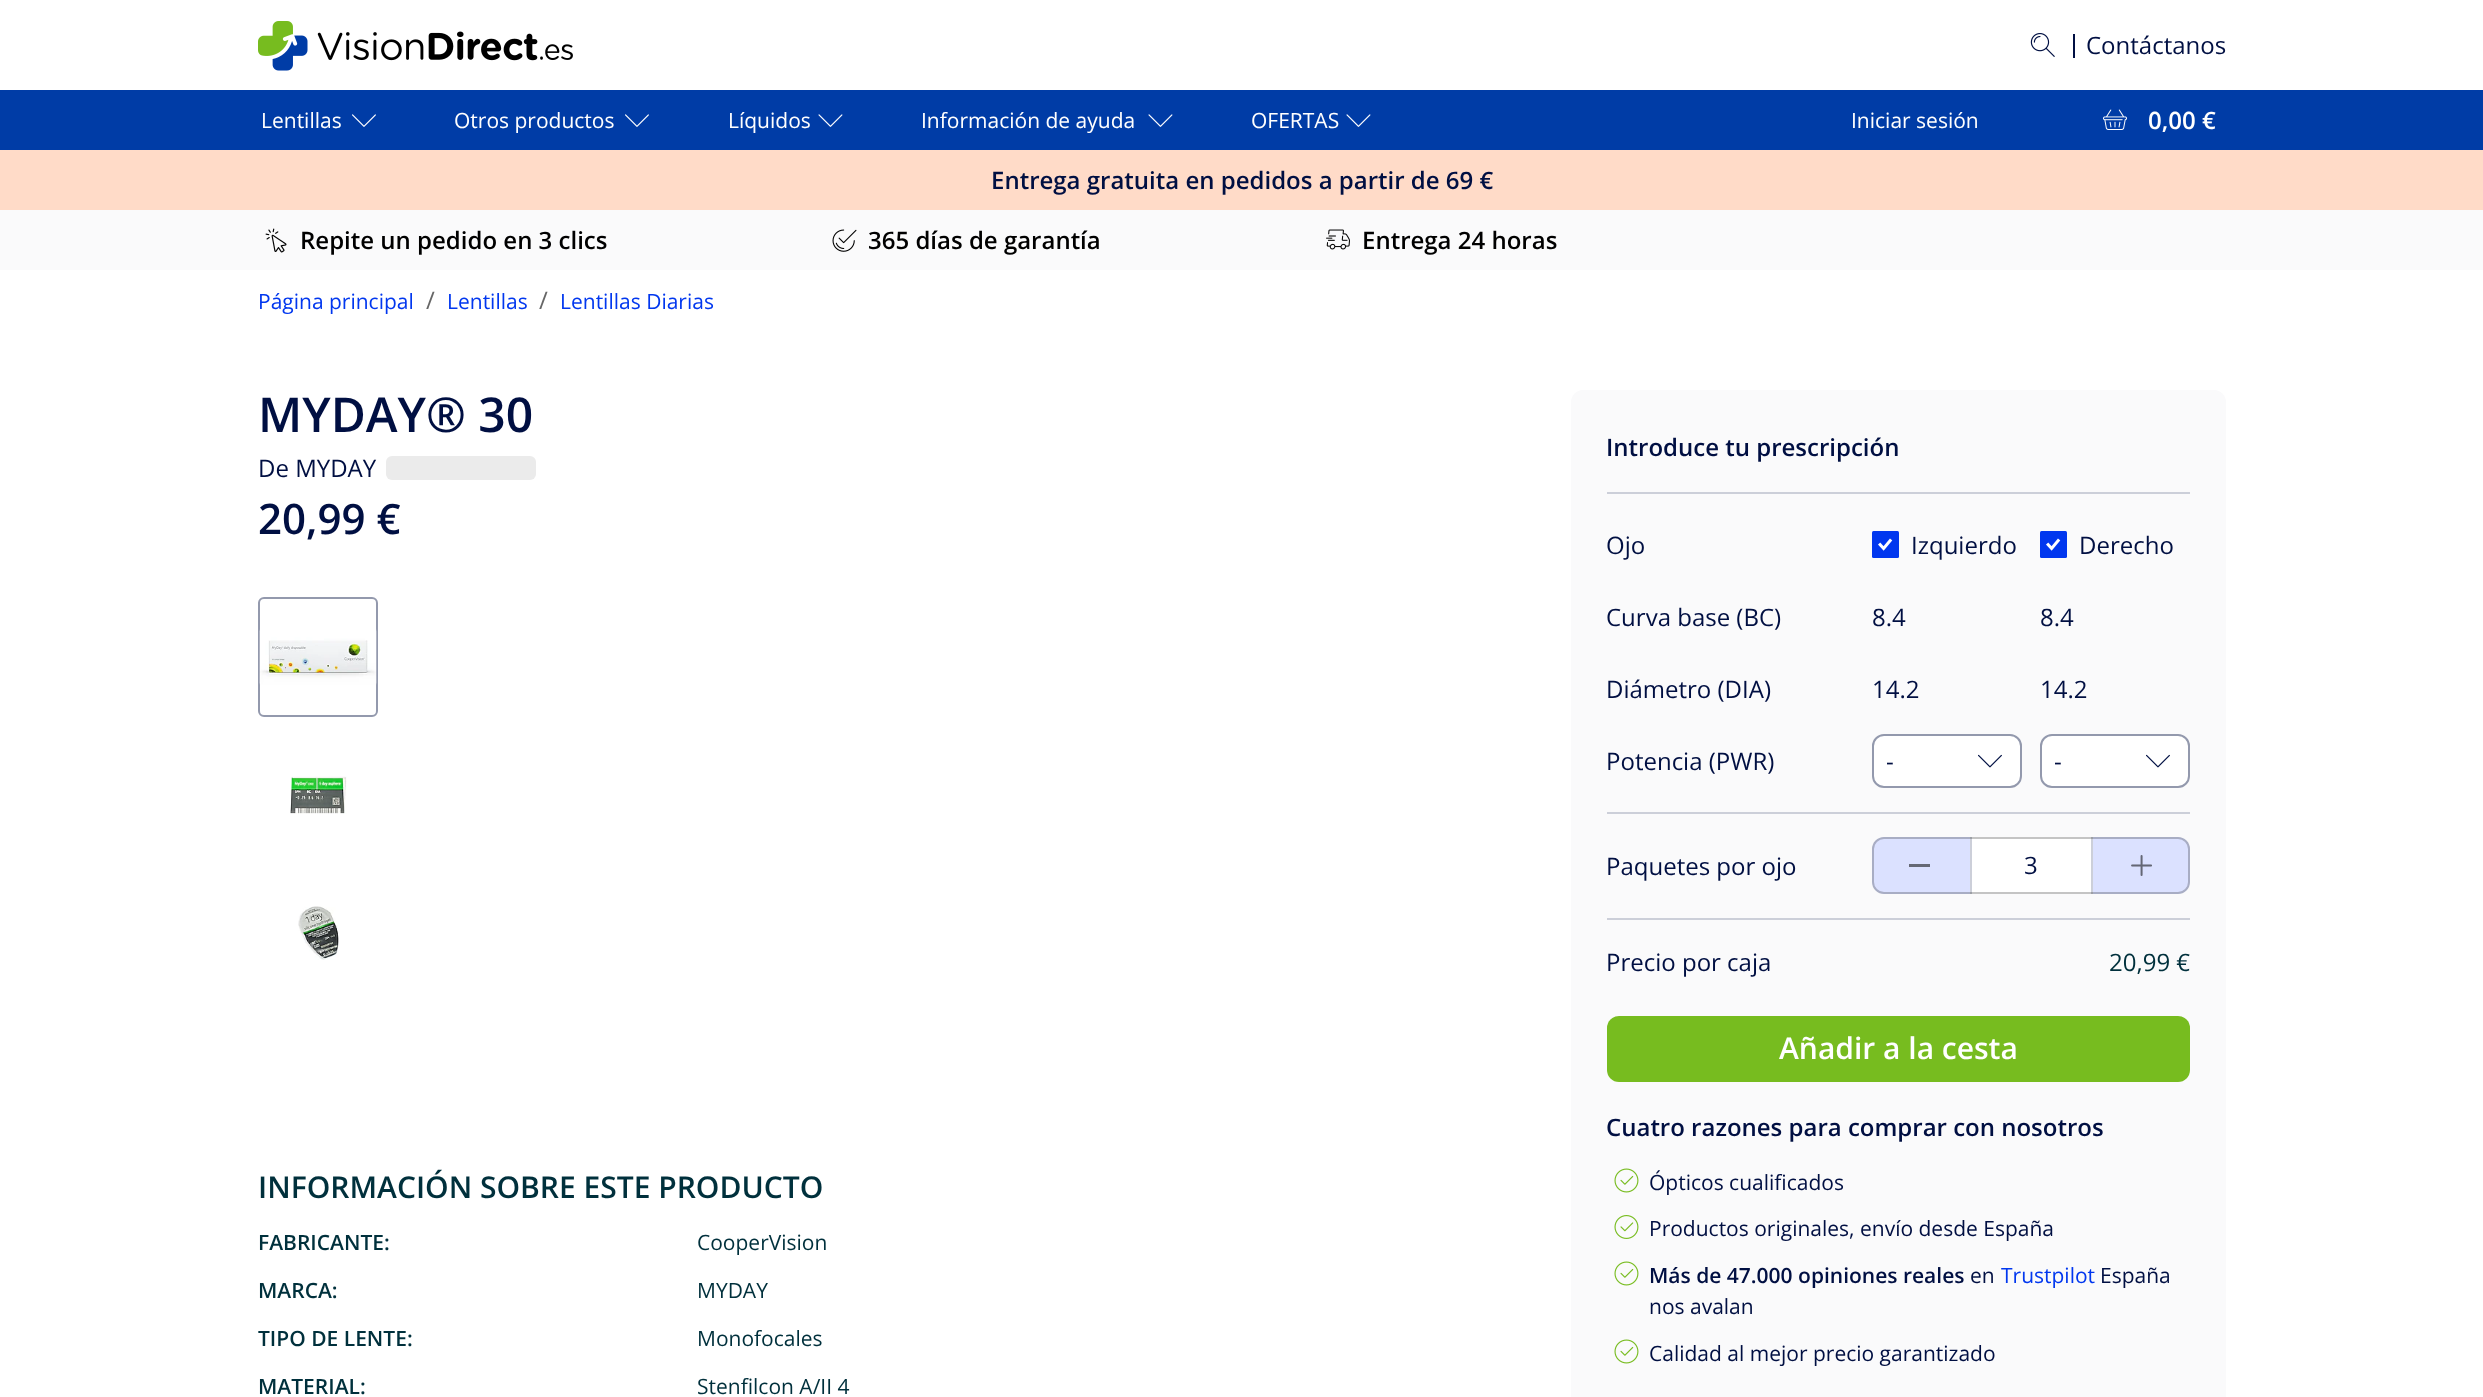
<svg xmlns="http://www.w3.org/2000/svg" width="2483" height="1397">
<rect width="100%" height="100%" fill="#fff"/>
<image x="258" y="21" width="315" height="50" href="media/1.png"/>
<image x="2030" y="33" width="25" height="24" href="media/2.png"/>
<rect x="2073" y="34" width="2" height="24" fill="#000f42"/>
<text x="2086" y="54" style="font-family:Open Sans;font-size:24px;fill:#000f42">Contáctanos</text>
<rect y="90" width="2483" height="60" fill="#003ca6"/>
<text x="261" y="128" style="font-family:Open Sans;font-size:21px;fill:#fff">Lentillas</text>
<image x="352" y="114" width="24" height="13" href="media/3.png"/>
<text x="454" y="128" style="font-family:Open Sans;font-size:21px;fill:#fff">Otros productos</text>
<image x="625" y="114" width="24" height="13" href="media/3.png"/>
<text x="728" y="128" style="font-family:Open Sans;font-size:21px;fill:#fff">Líquidos</text>
<image x="818" y="114" width="25" height="13" href="media/4.png"/>
<text x="921" y="128" style="font-family:Open Sans;font-size:21px;fill:#fff">Información de ayuda</text>
<image x="1148" y="114" width="25" height="13" href="media/4.png"/>
<text x="1251" y="128" style="font-family:Open Sans;font-size:21px;fill:#fff">OFERTAS</text>
<image x="1346" y="114" width="25" height="13" href="media/4.png"/>
<text x="1851" y="128" style="font-family:Open Sans;font-size:21px;fill:#fff">Iniciar sesión</text>
<image x="2103" y="109" width="24" height="21" href="media/5.png"/>
<text x="2148" y="129" style="font-family:Open Sans;font-size:24px;font-weight:600;fill:#fff">0,00 €</text>
<rect y="150" width="2483" height="60" fill="#ffdbc8"/>
<text x="991" y="189" style="font-family:Open Sans;font-size:24px;font-weight:600;fill:#000f42">Entrega gratuita en pedidos a partir de 69 €</text>
<rect y="210" width="2483" height="60" fill="#fafafb"/>
<image x="265" y="228" width="22" height="25" href="media/6.png"/>
<text x="300" y="249" style="font-family:Open Sans;font-size:24px;font-weight:600;fill:#000">Repite un pedido en 3 clics</text>
<image x="832" y="229" width="25" height="23" href="media/7.png"/>
<text x="868" y="249" style="font-family:Open Sans;font-size:24px;font-weight:600;fill:#000">365 días de garantía</text>
<image x="1326" y="229" width="24" height="21" href="media/8.png"/>
<text x="1362" y="249" style="font-family:Open Sans;font-size:24px;font-weight:600;fill:#000">Entrega 24 horas</text>
<text x="258" y="309" style="font-family:Open Sans;font-size:21px;fill:#0137ef">Página principal</text>
<text x="426" y="309" style="font-family:Open Sans;font-size:24px;fill:#666">/</text>
<text x="447" y="309" style="font-family:Open Sans;font-size:21px;fill:#0137ef">Lentillas</text>
<text x="539" y="309" style="font-family:Open Sans;font-size:24px;fill:#666">/</text>
<text x="560" y="309" style="font-family:Open Sans;font-size:21px;fill:#0137ef">Lentillas Diarias</text>
<text x="258" y="432" style="font-family:Open Sans;font-size:48px;font-weight:600;fill:#000f42">MYDAY® 30</text>
<text x="258" y="477" style="font-family:Open Sans;font-size:24px;fill:#000f42">De MYDAY</text>
<rect x="386" y="456" width="150" height="24" rx="6" fill="#ebebeb"/>
<text x="258" y="534" style="font-family:Open Sans;font-size:42px;font-weight:600;fill:#000f42">20,99 €</text>
<rect x="259" y="598" width="118" height="118" rx="5" fill="none" stroke="#9399ad" stroke-width="2"/>
<image x="259" y="629" width="118" height="56" href="media/9.png"/>
<image x="290" y="776" width="57" height="38" href="media/10.png"/>
<image x="298" y="906" width="41" height="54" href="media/11.png"/>
<text x="258" y="1198" style="font-family:Open Sans;font-size:30px;font-weight:600;fill:#00303c">INFORMACIÓN SOBRE ESTE PRODUCTO</text>
<text x="258" y="1250" style="font-family:Open Sans;font-size:21px;font-weight:600;fill:#00303c">FABRICANTE:</text>
<text x="697" y="1250" style="font-family:Open Sans;font-size:21px;fill:#00303c">CooperVision</text>
<text x="258" y="1298" style="font-family:Open Sans;font-size:21px;font-weight:600;fill:#00303c">MARCA:</text>
<text x="697" y="1298" style="font-family:Open Sans;font-size:21px;fill:#00303c">MYDAY</text>
<text x="258" y="1346" style="font-family:Open Sans;font-size:21px;font-weight:600;fill:#00303c">TIPO DE LENTE:</text>
<text x="697" y="1346" style="font-family:Open Sans;font-size:21px;fill:#00303c">Monofocales</text>
<text x="258" y="1394" style="font-family:Open Sans;font-size:21px;font-weight:600;fill:#00303c">MATERIAL:</text>
<text x="697" y="1394" style="font-family:Open Sans;font-size:21px;fill:#00303c">Stenfilcon A/II 4</text>
<path d="M1583 390h631c6.5 0 12 5.5 12 12v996h-655v-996c0-6.5 5.5-12 12-12z" fill="#fafafb"/>
<text x="1606" y="456" style="font-family:Open Sans;font-size:24px;font-weight:600;fill:#000f42">Introduce tu prescripción</text>
<rect x="1607" y="492" width="583" height="2" fill="#cccfd9"/>
<text x="1606" y="554" style="font-family:Open Sans;font-size:24px;fill:#000f42">Ojo</text>
<text x="1606" y="626" style="font-family:Open Sans;font-size:24px;fill:#000f42">Curva base (BC)</text>
<text x="1606" y="698" style="font-family:Open Sans;font-size:24px;fill:#000f42">Diámetro (DIA)</text>
<text x="1606" y="770" style="font-family:Open Sans;font-size:24px;fill:#000f42">Potencia (PWR)</text>
<rect x="1872" y="531" width="27" height="27" rx="1.5" fill="#0137ef"/>
<image x="1878" y="538" width="15" height="13" href="media/12.png"/>
<text x="1911" y="554" style="font-family:Open Sans;font-size:24px;fill:#000f42">Izquierdo</text>
<text x="1872" y="626" style="font-family:Open Sans;font-size:24px;fill:#000f42">8.4</text>
<text x="1872" y="698" style="font-family:Open Sans;font-size:24px;fill:#000f42">14.2</text>
<rect x="1873" y="735" width="148" height="52" rx="11" fill="#fff" stroke="#9399ad" stroke-width="2"/>
<text x="1886" y="770" style="font-family:Open Sans;font-size:24px;fill:#000f42">-</text>
<image x="1978" y="754" width="24" height="14" href="media/13.png"/>
<rect x="2040" y="531" width="27" height="27" rx="1.5" fill="#0137ef"/>
<image x="2046" y="538" width="15" height="13" href="media/12.png"/>
<text x="2079" y="554" style="font-family:Open Sans;font-size:24px;fill:#000f42">Derecho</text>
<text x="2040" y="626" style="font-family:Open Sans;font-size:24px;fill:#000f42">8.4</text>
<text x="2040" y="698" style="font-family:Open Sans;font-size:24px;fill:#000f42">14.2</text>
<rect x="2041" y="735" width="148" height="52" rx="11" fill="#fff" stroke="#9399ad" stroke-width="2"/>
<text x="2054" y="770" style="font-family:Open Sans;font-size:24px;fill:#000f42">-</text>
<image x="2146" y="754" width="24" height="14" href="media/13.png"/>
<rect x="1607" y="812" width="583" height="2" fill="#cccfd9"/>
<text x="1606" y="875" style="font-family:Open Sans;font-size:24px;fill:#000f42">Paquetes por ojo</text>
<rect x="1872" y="837" width="318" height="57" rx="12" fill="#fff"/>
<path d="M1884 837h87v57h-87c-6.5 0-12-5.5-12-12v-33c0-6.5 5.5-12 12-12z" fill="#dbe1ff"/>
<rect x="1970" y="837" width="2" height="57" fill="#cccfd9"/>
<rect x="1909" y="864" width="21" height="3" fill="#656875"/>
<path d="M2091 837h87c6.5 0 12 5.5 12 12v33c0 6.5-5.5 12-12 12h-87z" fill="#dbe1ff"/>
<rect x="2091" y="837" width="2" height="57" fill="#cccfd9"/>
<image x="2131" y="855" width="21" height="21" href="media/14.png"/>
<rect x="1873" y="838" width="316" height="55" rx="11" fill="none" stroke="#0000003b" stroke-width="2"/>
<text x="2024" y="874" style="font-family:Open Sans;font-size:24px;fill:#000f42">3</text>
<rect x="1607" y="918" width="583" height="2" fill="#cccfd9"/>
<text x="1606" y="971" style="font-family:Open Sans;font-size:24px;fill:#000f42">Precio por caja</text>
<text x="2109" y="971" style="font-family:Open Sans;font-size:24px;fill:#00303c">20,99 €</text>
<rect x="1607" y="1016" width="583" height="66" rx="12" fill="#77bc1f"/>
<text x="1779" y="1059" style="font-family:Open Sans;font-size:30px;font-weight:600;fill:#fff">Añadir a la cesta</text>
<text x="1606" y="1136" style="font-family:Open Sans;font-size:24px;font-weight:600;fill:#000f42">Cuatro razones para comprar con nosotros</text>
<image x="1614" y="1168" width="25" height="25" href="media/15.png"/>
<text x="1649" y="1190" style="font-family:Open Sans;font-size:21px;fill:#000f42">Ópticos cualificados</text>
<image x="1614" y="1215" width="25" height="24" href="media/16.png"/>
<text x="1649" y="1236" style="font-family:Open Sans;font-size:21px;fill:#000f42">Productos originales, envío desde España</text>
<image x="1614" y="1261" width="25" height="25" href="media/15.png"/>
<text x="1649" y="1283" style="font-family:Open Sans;font-size:21px;font-weight:600;fill:#000f42">Más de 47.000 opiniones reales</text>
<text x="1970" y="1283" style="font-family:Open Sans;font-size:21px;fill:#000f42">en</text>
<text x="2001" y="1283" style="font-family:Open Sans;font-size:21px;fill:#0137ef">Trustpilot</text>
<text x="2100" y="1283" style="font-family:Open Sans;font-size:21px;fill:#000f42">España</text>
<text x="1649" y="1314" style="font-family:Open Sans;font-size:21px;fill:#000f42">nos avalan</text>
<image x="1614" y="1339" width="25" height="25" href="media/15.png"/>
<text x="1649" y="1361" style="font-family:Open Sans;font-size:21px;fill:#000f42">Calidad al mejor precio garantizado</text>
</svg>
